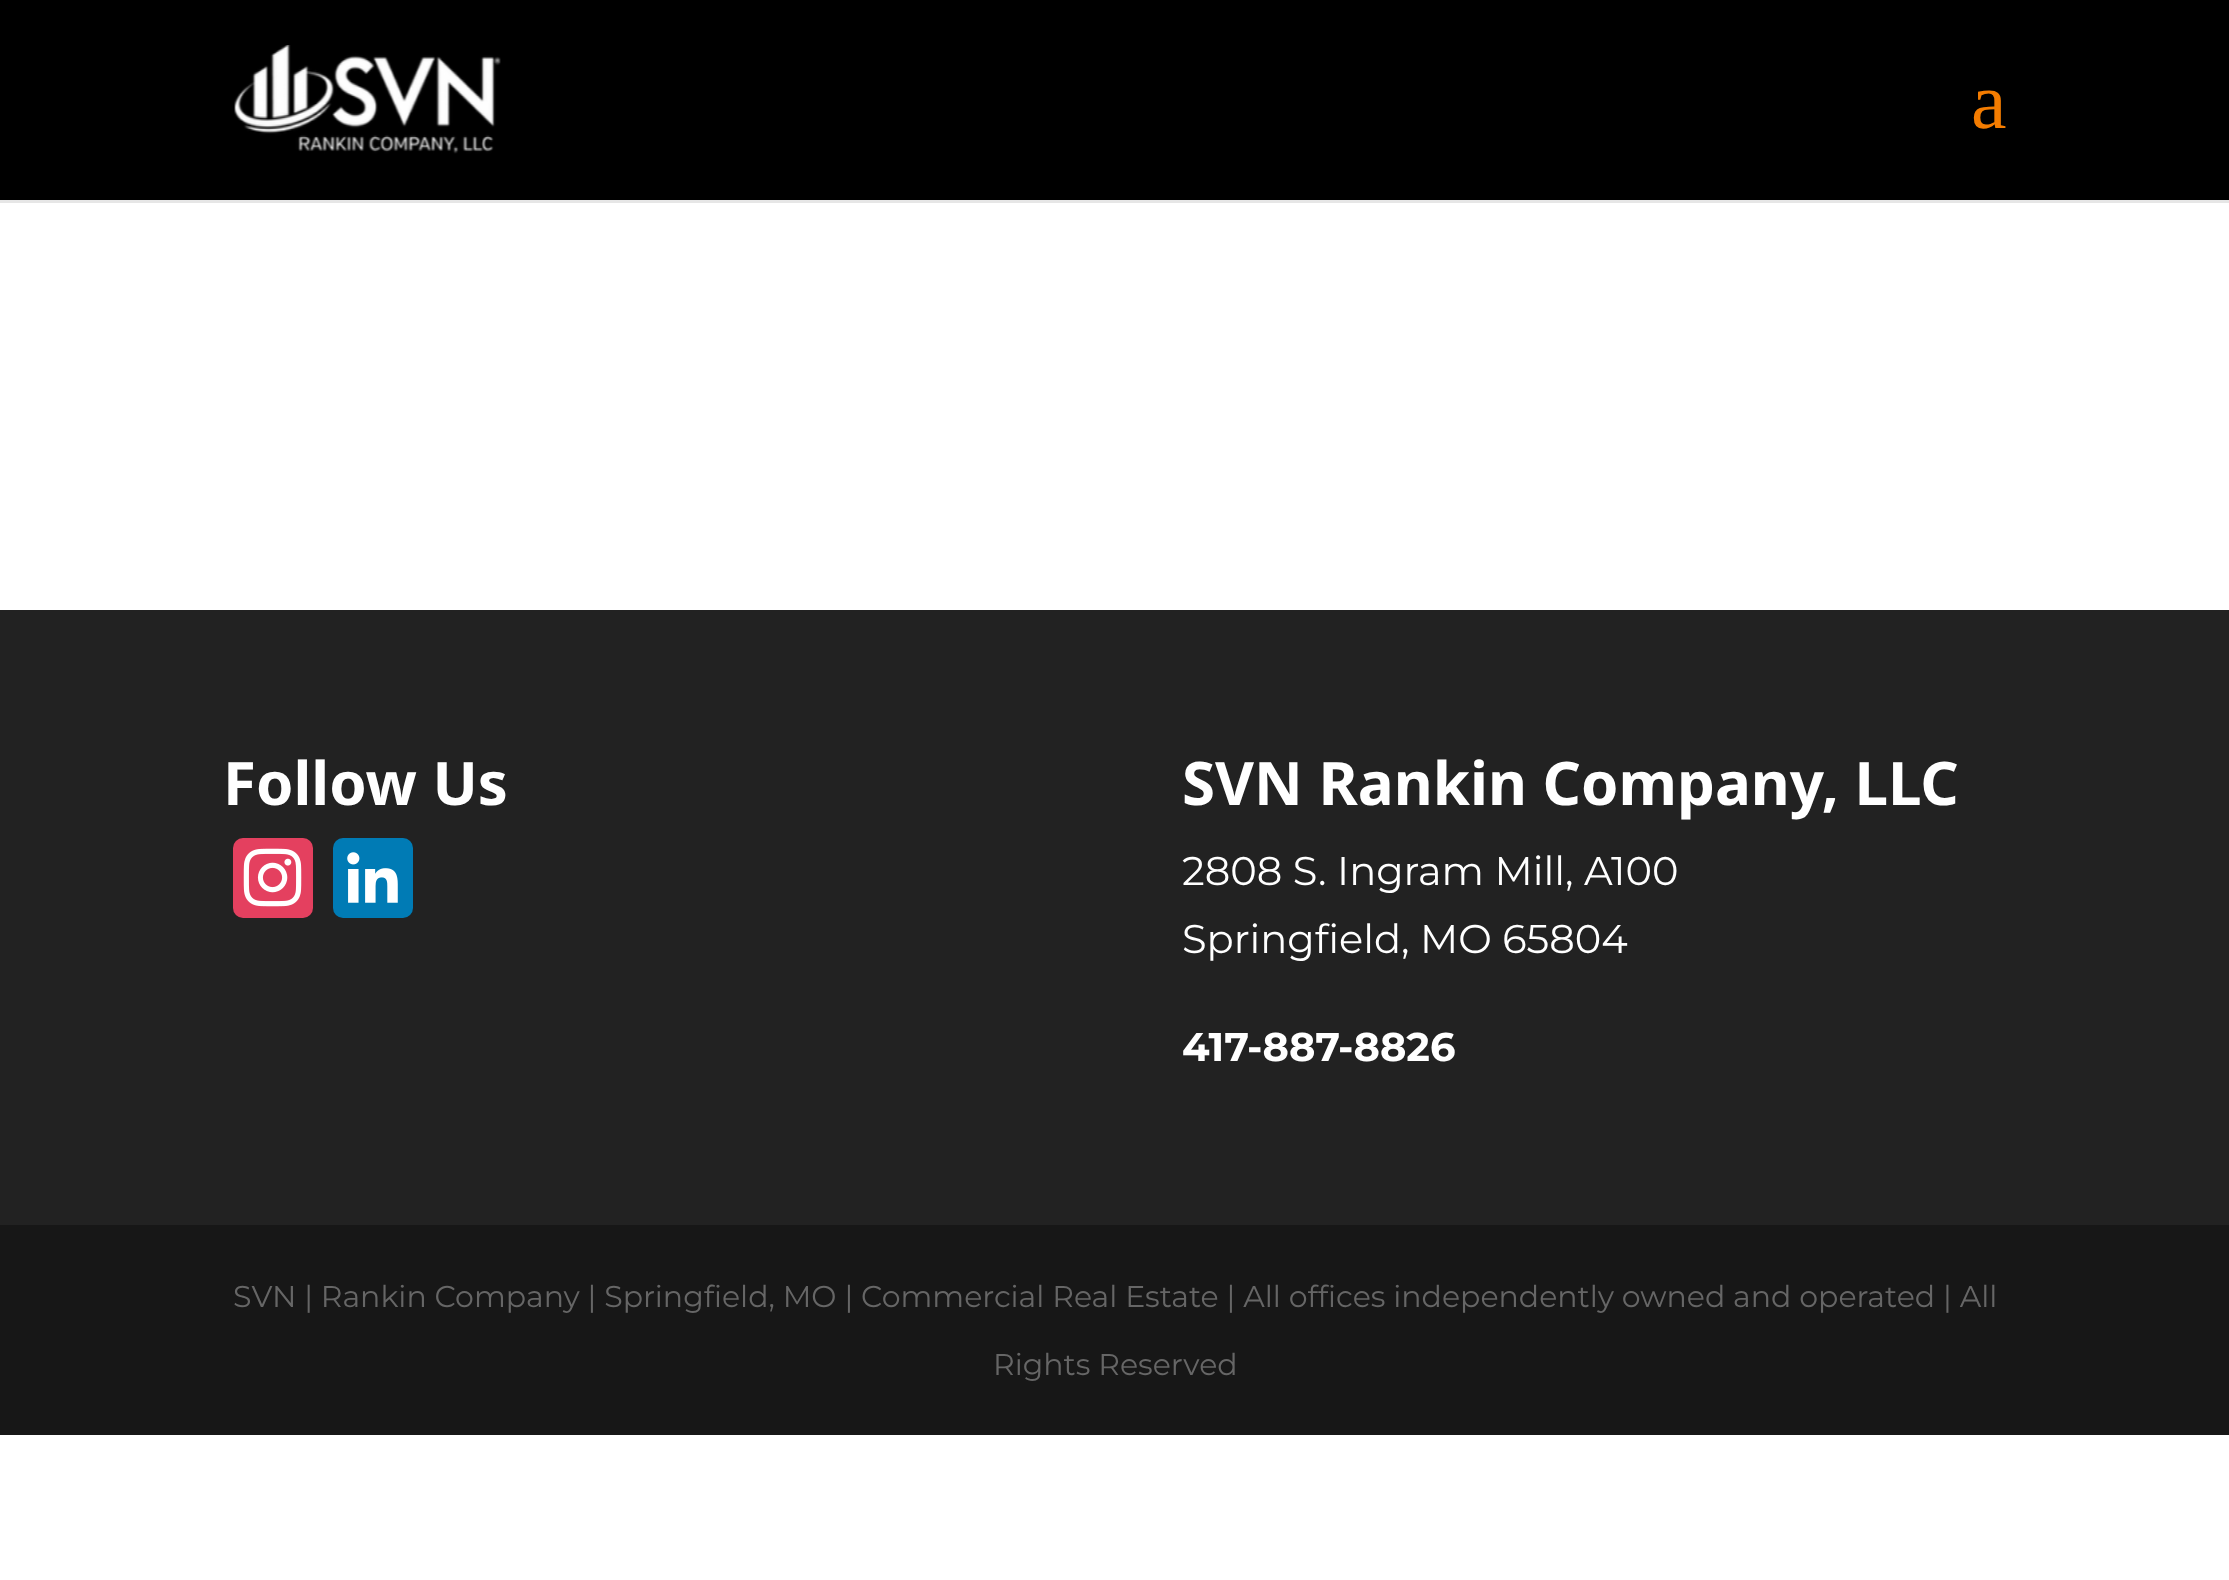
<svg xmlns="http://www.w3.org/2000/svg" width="2229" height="1580">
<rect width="100%" height="100%" fill="#fff"/>
<rect y="200" width="2229" height="3" fill="#e6e6e6"/>
<rect width="2229" height="200" fill="#000"/>
<image x="234" y="45" width="267" height="109" href="media/1.png"/>
<text x="1971" y="128" style="font-family:Liberation Serif;font-size:80px;fill:#f47c00">a</text>
<rect y="610" width="2229" height="615" fill="#222"/>
<text x="223" y="805" style="font-family:Noto Sans;font-size:60px;font-weight:bold;fill:#fff">Follow Us</text>
<rect x="233" y="838" width="80" height="80" rx="10" fill="#e4405f"/>
<image x="243" y="848" width="59" height="59" href="media/2.png"/>
<rect x="333" y="838" width="80" height="80" rx="10" fill="#007bb5"/>
<image x="347" y="852" width="51" height="51" href="media/3.png"/>
<text x="1182" y="805" style="font-family:Noto Sans;font-size:60px;font-weight:bold;fill:#fff">SVN Rankin Company, LLC</text>
<text x="1182" y="885" style="font-family:Montserrat;font-size:40px;fill:#fff">2808 S. Ingram Mill, A100</text>
<text x="1182" y="953" style="font-family:Montserrat;font-size:40px;fill:#fff">Springfield, MO 65804</text>
<text x="1182" y="1061" style="font-family:Montserrat;font-size:40px;font-weight:bold;fill:#fff">417-887-8826</text>
<rect y="1225" width="2229" height="210" fill="#171717"/>
<text x="233" y="1307" style="font-family:Montserrat;font-size:30px;fill:#666">SVN | Rankin Company | Springfield, MO | Commercial Real Estate | All offices independently owned and operated | All</text>
<text x="993" y="1375" style="font-family:Montserrat;font-size:30px;fill:#666">Rights Reserved</text>
</svg>
